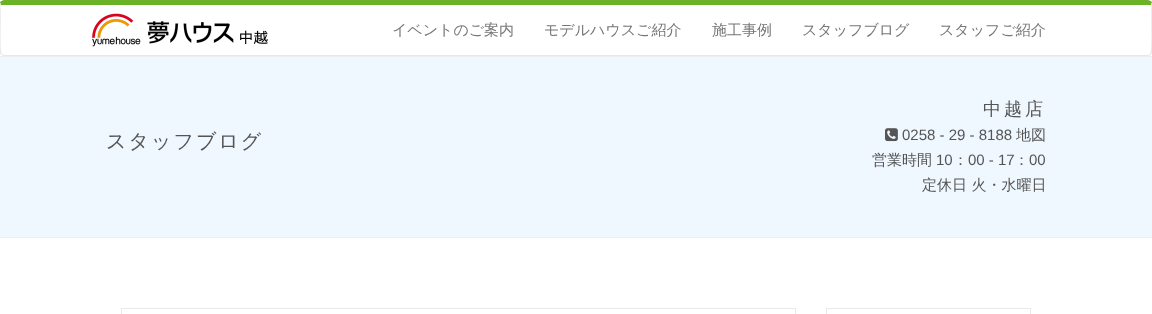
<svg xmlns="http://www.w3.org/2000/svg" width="1152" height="314">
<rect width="100%" height="100%" fill="#fff"/>
<path d="M4 0c-1 0-3 1-4 2l1 3h1150l1-3c-1-1-3-2-4-2z" fill="#6bb226"/>
<path d="M1152 52v-48v-2c-2 8 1 50-2 52l1 1z" fill="#e7e7e7"/>
<path d="M4 56h1144l3-1l-1-1l-2 1h-1144l-2-1l-1 1z" fill="#e7e7e7"/>
<path d="M0 4v49l1 2l1-1c-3-2 0-44-2-52z" fill="#e7e7e7"/>
<image x="92" y="13" width="176" height="34" href="media/1.png"/>
<text x="392" y="35" style="font-family:WenQuanYi Zen Hei;font-size:15px;font-weight:500;fill:#777">イベントのご案内</text>
<text x="544" y="35" style="font-family:WenQuanYi Zen Hei;font-size:15px;font-weight:500;fill:#777">モデルハウスご紹介</text>
<text x="712" y="35" style="font-family:WenQuanYi Zen Hei;font-size:15px;font-weight:500;fill:#777">施工事例</text>
<text x="802" y="35" style="font-family:WenQuanYi Zen Hei;font-size:15px;font-weight:500;fill:#777">スタッフブログ</text>
<text x="939" y="35" style="font-family:WenQuanYi Zen Hei;font-size:15px;font-weight:500;fill:#777">スタッフご紹介</text>
<rect y="57" width="1152" height="180" fill="#f0f8ff"/>
<rect y="56" width="1152" height="1" fill="#eee"/>
<rect y="237" width="1152" height="1" fill="#eee"/>
<text x="106" y="148" style="font-family:WenQuanYi Zen Hei;font-size:20px;font-weight:500;letter-spacing:2px;fill:#555">スタッフブログ</text>
<text x="983" y="115" style="font-family:WenQuanYi Zen Hei;font-size:18px;font-weight:500;letter-spacing:3px;fill:#555">中越店</text>
<image x="885" y="128" width="13" height="14" href="media/2.png"/>
<text x="902" y="140" style="font-family:Liberation Sans;font-size:15px;fill:#555">0258 - 29 - 8188</text>
<text x="1016" y="140" style="font-family:WenQuanYi Zen Hei;font-size:15px;font-weight:500;fill:#555">地図</text>
<text x="872" y="165" style="font-family:WenQuanYi Zen Hei;font-size:15px;font-weight:500;fill:#555">営業時間</text>
<text x="936" y="165" style="font-family:Liberation Sans;font-size:15px;fill:#555">10</text>
<text x="953" y="165" style="font-family:WenQuanYi Zen Hei;font-size:15px;font-weight:500;fill:#555">：</text>
<text x="968" y="165" style="font-family:Liberation Sans;font-size:15px;fill:#555">00 - 17</text>
<text x="1014" y="165" style="font-family:WenQuanYi Zen Hei;font-size:15px;font-weight:500;fill:#555">：</text>
<text x="1029" y="165" style="font-family:Liberation Sans;font-size:15px;fill:#555">00</text>
<text x="922" y="190" style="font-family:WenQuanYi Zen Hei;font-size:15px;font-weight:500;fill:#555">定休日 火・水曜日</text>
<rect x="121.5" y="308.5" width="674" height="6" fill="none" stroke="#e9e9e9"/>
<rect x="826.5" y="308.5" width="204" height="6" fill="none" stroke="#e9e9e9"/>
</svg>
